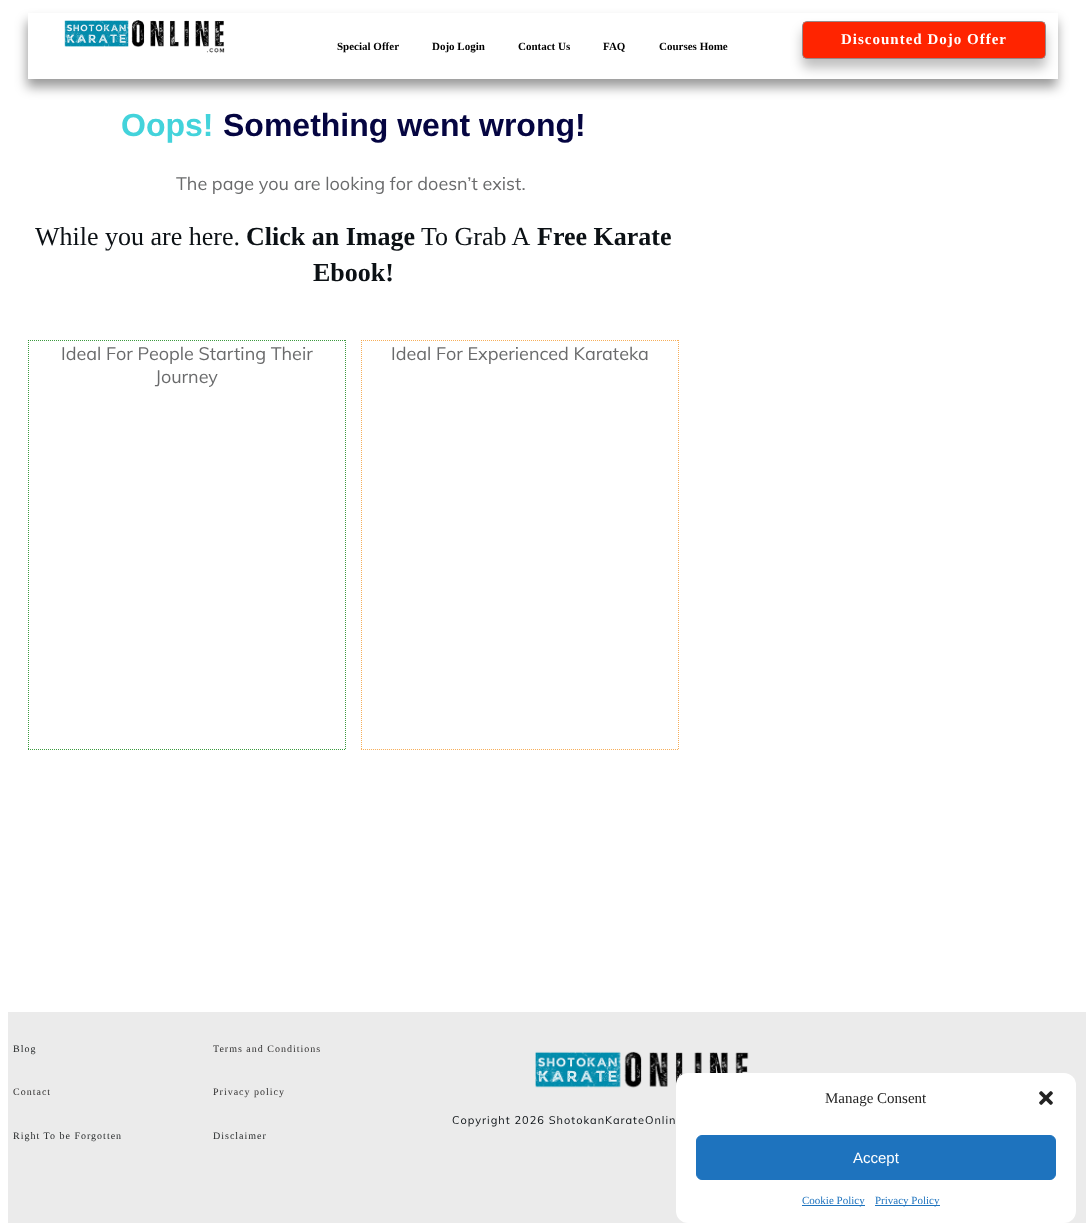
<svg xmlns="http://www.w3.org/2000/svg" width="1086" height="1223">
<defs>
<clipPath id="clip1"><path d="M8 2h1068v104h-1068zm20 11h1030v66h-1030z" clip-rule="evenodd"/></clipPath>
<clipPath id="clip2"><rect x="802" y="21" width="244" height="38" rx="5"/></clipPath>
</defs>
<rect width="100%" height="100%" fill="#fff"/>
<g clip-path="url(#clip1)">
<rect x="27" y="21" width="1030" height="66" fill="#00000066" filter="blur(6px)"/>
</g>
<image x="64" y="20" width="161" height="33" href="media/1.png"/>
<text x="337" y="50" style="font-family:Liberation Serif;font-size:11px;font-weight:bold;fill:#000">Special Offer</text>
<text x="432" y="50" style="font-family:Liberation Serif;font-size:11px;font-weight:bold;fill:#000">Dojo Login</text>
<text x="518" y="50" style="font-family:Liberation Serif;font-size:11px;font-weight:bold;fill:#000">Contact Us</text>
<text x="603" y="50" style="font-family:Liberation Serif;font-size:11px;font-weight:bold;fill:#000">FAQ</text>
<text x="659" y="50" style="font-family:Liberation Serif;font-size:11px;font-weight:bold;fill:#000">Courses Home</text>
<rect x="802" y="30" width="244" height="38" rx="5" fill="#00000040" filter="blur(6px)"/>
<g clip-path="url(#clip2)">
<rect x="803" y="22" width="242" height="36" fill="#ff2400"/>
</g>
<rect x="802.5" y="21.5" width="243" height="37" rx="4.5" fill="none" stroke="#988"/>
<text x="841" y="44" style="font-family:Liberation Serif;font-size:15px;font-weight:bold;letter-spacing:1px;fill:#fff">Discounted Dojo Offer</text>
<text x="121" y="136" style="font-family:Liberation Sans;font-size:32px;font-weight:bold;fill:#43d3db">Oops!</text>
<text x="223" y="136" style="font-family:Liberation Sans;font-size:32px;font-weight:bold;fill:#050541">Something went wrong!</text>
<text x="176" y="190" style="font-family:Muli;font-size:18px;fill:#6a6b6c">The page you are looking for doesn’t exist.</text>
<text x="35" y="245" style="font-family:Liberation Serif;font-size:26px;fill:#0c1115">While you are here.</text>
<text x="246" y="245" style="font-family:Liberation Serif;font-size:26px;font-weight:bold;fill:#0c1115">Click an Image</text>
<text x="421" y="245" style="font-family:Liberation Serif;font-size:26px;fill:#0c1115">To Grab A</text>
<text x="537" y="245" style="font-family:Liberation Serif;font-size:26px;font-weight:bold;fill:#0c1115">Free Karate</text>
<text x="313" y="281" style="font-family:Liberation Serif;font-size:26px;font-weight:bold;fill:#0c1115">Ebook!</text>
<path d="M28 340.5h318" fill="none" stroke="#3c9a3f" stroke-dasharray="1 1"/>
<path d="M345.5 340v410" fill="none" stroke="#3c9a3f" stroke-dasharray="1 1"/>
<path d="M28 749.5h318" fill="none" stroke="#3c9a3f" stroke-dasharray="1 1"/>
<path d="M28.5 340v410" fill="none" stroke="#1a881dd9" stroke-dasharray="1 1"/>
<text x="61" y="360" style="font-family:Muli;font-size:18px;fill:#6a6b6c">Ideal For People Starting Their</text>
<text x="155" y="383" style="font-family:Muli;font-size:18px;fill:#6a6b6c">Journey</text>
<path d="M361 340.5h318" fill="none" stroke="#f7ae59" stroke-dasharray="1 1"/>
<path d="M678.5 340v410" fill="none" stroke="#f7ae59" stroke-dasharray="1 1"/>
<path d="M361 749.5h318" fill="none" stroke="#f7ae59" stroke-dasharray="1 1"/>
<path d="M361.5 340v410" fill="none" stroke="#f5a03cd9" stroke-dasharray="1 1"/>
<text x="391" y="360" style="font-family:Muli;font-size:18px;fill:#6a6b6c">Ideal For Experienced Karateka</text>
<rect x="8" y="1012" width="1078" height="211" fill="#ebebeb"/>
<text x="13" y="1052" style="font-family:Liberation Serif;font-size:10px;letter-spacing:1px;fill:#26292a">Blog</text>
<text x="13" y="1095" style="font-family:Liberation Serif;font-size:10px;letter-spacing:1px;fill:#313030">Contact</text>
<text x="13" y="1139" style="font-family:Liberation Serif;font-size:10px;letter-spacing:1px;fill:#26292a">Right To be Forgotten</text>
<text x="213" y="1052" style="font-family:Liberation Serif;font-size:10px;letter-spacing:1px;fill:#313030">Terms and Conditions</text>
<text x="213" y="1095" style="font-family:Liberation Serif;font-size:10px;letter-spacing:1px;fill:#313030">Privacy policy</text>
<text x="213" y="1139" style="font-family:Liberation Serif;font-size:10px;letter-spacing:1px;fill:#26292a">Disclaimer</text>
<image x="535" y="1051" width="214" height="37" href="media/2.png"/>
<text x="452" y="1124" style="font-family:Muli;font-size:11px;letter-spacing:1px;fill:#0c1115">Copyright 2026 ShotokanKarateOnlin</text>
<rect x="676" y="1073" width="400" height="150" rx="12" fill="#fff"/>
<text x="825" y="1103" style="font-family:Liberation Serif;font-size:15px;fill:#222">Manage Consent</text>
<image x="1039" y="1091" width="14" height="14" href="media/3.png"/>
<rect x="696.5" y="1135.5" width="359" height="44" rx="5.5" fill="#1e73be" stroke="#1e73be"/>
<text x="853" y="1163" style="font-family:Liberation Sans;font-size:15px;fill:#fff">Accept</text>
<rect x="802" y="1205" width="63" height="1" fill="#1e73be"/>
<text x="802" y="1204" style="font-family:Liberation Serif;font-size:11px;fill:#1e73be">Cookie Policy</text>
<rect x="875" y="1205" width="65" height="1" fill="#1e73be"/>
<text x="875" y="1204" style="font-family:Liberation Serif;font-size:11px;fill:#1e73be">Privacy Policy</text>
</svg>
